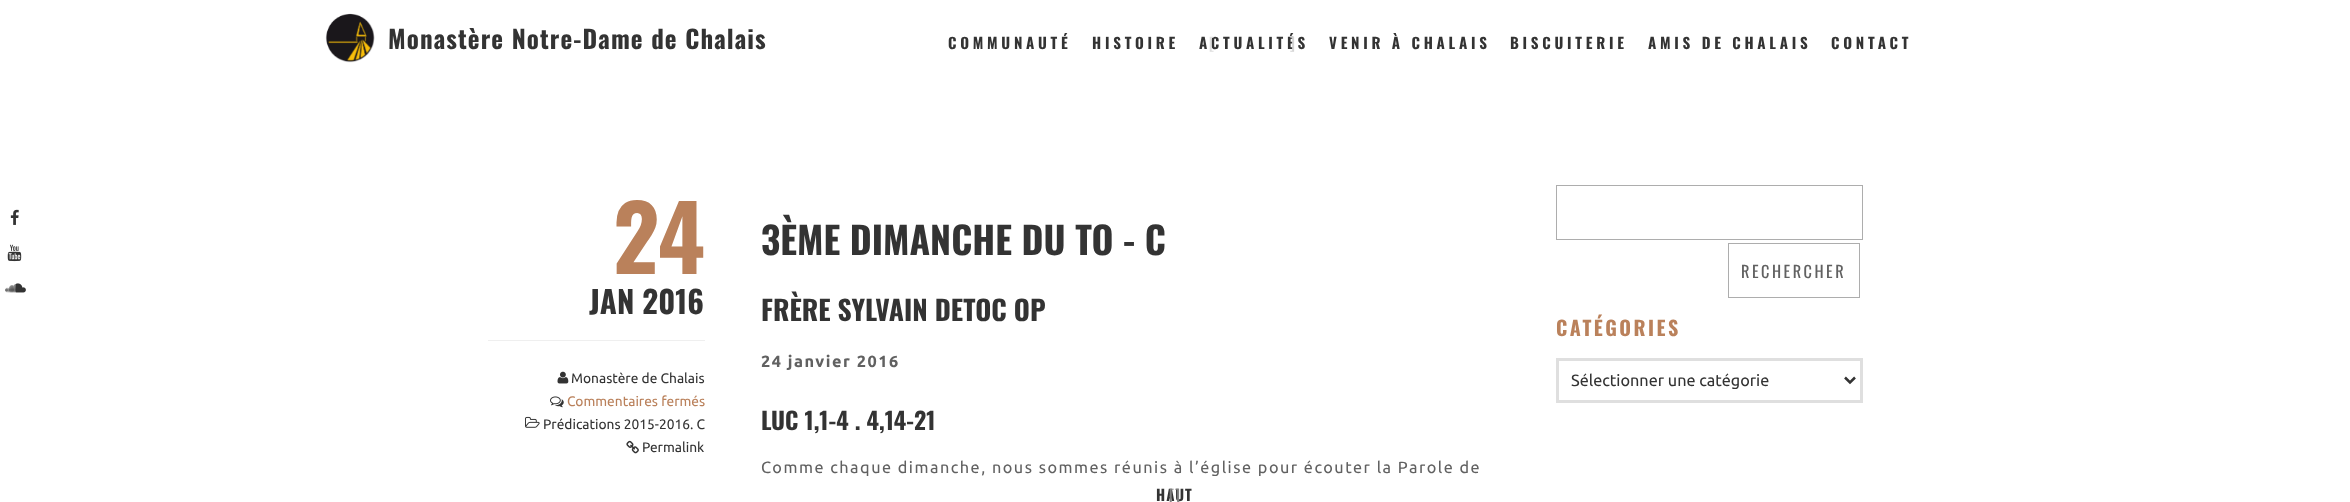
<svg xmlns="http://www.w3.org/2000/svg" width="2350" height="502">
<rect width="100%" height="100%" fill="#fff"/>
<image x="325" y="13" width="50" height="50" href="media/1.png"/>
<text x="388" y="49" style="font-family:Oswald;font-size:25px;font-weight:bold;letter-spacing:1.1px;fill:#333">Monastère Notre-Dame de Chalais</text>
<text x="948" y="49" style="font-family:Oswald;font-size:15px;font-weight:bold;letter-spacing:3.75px;fill:#333">COMMUNAUTÉ</text>
<text x="1092" y="49" style="font-family:Oswald;font-size:15px;font-weight:bold;letter-spacing:3.75px;fill:#333">HISTOIRE</text>
<text x="1199" y="49" style="font-family:Oswald;font-size:15px;font-weight:bold;letter-spacing:3.75px;fill:#333">ACTUALITÉS</text>
<text x="1209" y="49" style="font-family:Oswald;font-size:15px;font-weight:bold;letter-spacing:3.75px;fill:#dedede">[</text>
<text x="1290" y="49" style="font-family:Oswald;font-size:15px;font-weight:bold;letter-spacing:3.75px;fill:#d5d5d5">]</text>
<text x="1329" y="49" style="font-family:Oswald;font-size:15px;font-weight:bold;letter-spacing:3.75px;fill:#333">VENIR À CHALAIS</text>
<text x="1510" y="49" style="font-family:Oswald;font-size:15px;font-weight:bold;letter-spacing:3.75px;fill:#333">BISCUITERIE</text>
<text x="1648" y="49" style="font-family:Oswald;font-size:15px;font-weight:bold;letter-spacing:3.75px;fill:#333">AMIS DE CHALAIS</text>
<text x="1831" y="49" style="font-family:Oswald;font-size:15px;font-weight:bold;letter-spacing:3.75px;fill:#333">CONTACT</text>
<image x="10" y="209" width="9" height="16" href="media/2.png"/>
<image x="7" y="244" width="15" height="18" href="media/3.png"/>
<image x="5" y="283" width="21" height="10" href="media/4.png"/>
<text x="613" y="274" style="font-family:Oswald;font-size:90px;font-weight:bold;fill:#ba815b">24</text>
<rect x="488" y="340" width="217" height="1" fill="#efefef"/>
<text x="589" y="314" style="font-family:Oswald;font-size:31px;font-weight:bold;fill:#333">JAN 2016</text>
<image x="557" y="371" width="12" height="13" href="media/5.png"/>
<text x="571" y="383" style="font-family:Ubuntu;font-size:13.75px;fill:#333">Monastère de Chalais</text>
<image x="550" y="396" width="14" height="12" href="media/6.png"/>
<text x="567" y="406" style="font-family:Ubuntu;font-size:13.75px;fill:#ba815b">Commentaires fermés</text>
<image x="525" y="416" width="15" height="12" href="media/7.png"/>
<text x="543" y="429" style="font-family:Ubuntu;font-size:13.75px;fill:#333">Prédications 2015-2016. C</text>
<image x="626" y="440" width="13" height="14" href="media/8.png"/>
<text x="642" y="452" style="font-family:Ubuntu;font-size:13.75px;fill:#333">Permalink</text>
<text x="761" y="255" style="font-family:Oswald;font-size:37.5px;font-weight:bold;fill:#333">3ÈME DIMANCHE DU TO - C</text>
<text x="761" y="321" style="font-family:Oswald;font-size:27.5px;font-weight:bold;fill:#333">FRÈRE SYLVAIN DETOC OP</text>
<text x="761" y="367" style="font-family:Ubuntu;font-size:16.25px;font-weight:bold;letter-spacing:1.5px;fill:#616161">24 janvier 2016</text>
<text x="761" y="430" style="font-family:Oswald;font-size:23.75px;font-weight:bold;fill:#333">LUC 1,1-4 . 4,14-21</text>
<text x="761" y="473" style="font-family:Ubuntu;font-size:16.25px;letter-spacing:1.5px;fill:#616161">Comme chaque dimanche, nous sommes réunis à l’église pour écouter la Parole de</text>
<rect x="1556.5" y="185.5" width="306" height="54" fill="none" stroke="#adadad"/>
<rect x="1728.5" y="243.5" width="131" height="54" fill="none" stroke="#adadad"/>
<text x="1741" y="278" style="font-family:Oswald;font-size:16.25px;letter-spacing:2.5px;fill:#616161">RECHERCHER</text>
<text x="1556" y="336" style="font-family:Oswald;font-size:20px;font-weight:bold;letter-spacing:2.5px;fill:#ba815b">CATÉGORIES</text>
<rect x="1557.5" y="359.5" width="304" height="42" fill="none" stroke="#dfdfdf" stroke-width="3"/>
<path d="M1845 377.5l5 5l5-5" fill="none" stroke="#333" stroke-width="2.5"/>
<text x="1571" y="386" style="font-family:Ubuntu;font-size:16.25px;fill:#333">Sélectionner une catégorie</text>
<text x="1156" y="501" style="font-family:Oswald;font-size:15px;font-weight:bold;letter-spacing:1px;fill:#333">HAUT</text>
<text x="1169" y="501" style="font-family:Oswald;font-size:15px;font-weight:bold;letter-spacing:1px;fill:#828282">[</text>
<text x="1175" y="501" style="font-family:Oswald;font-size:15px;font-weight:bold;letter-spacing:1px;fill:#828282">]</text>
</svg>
